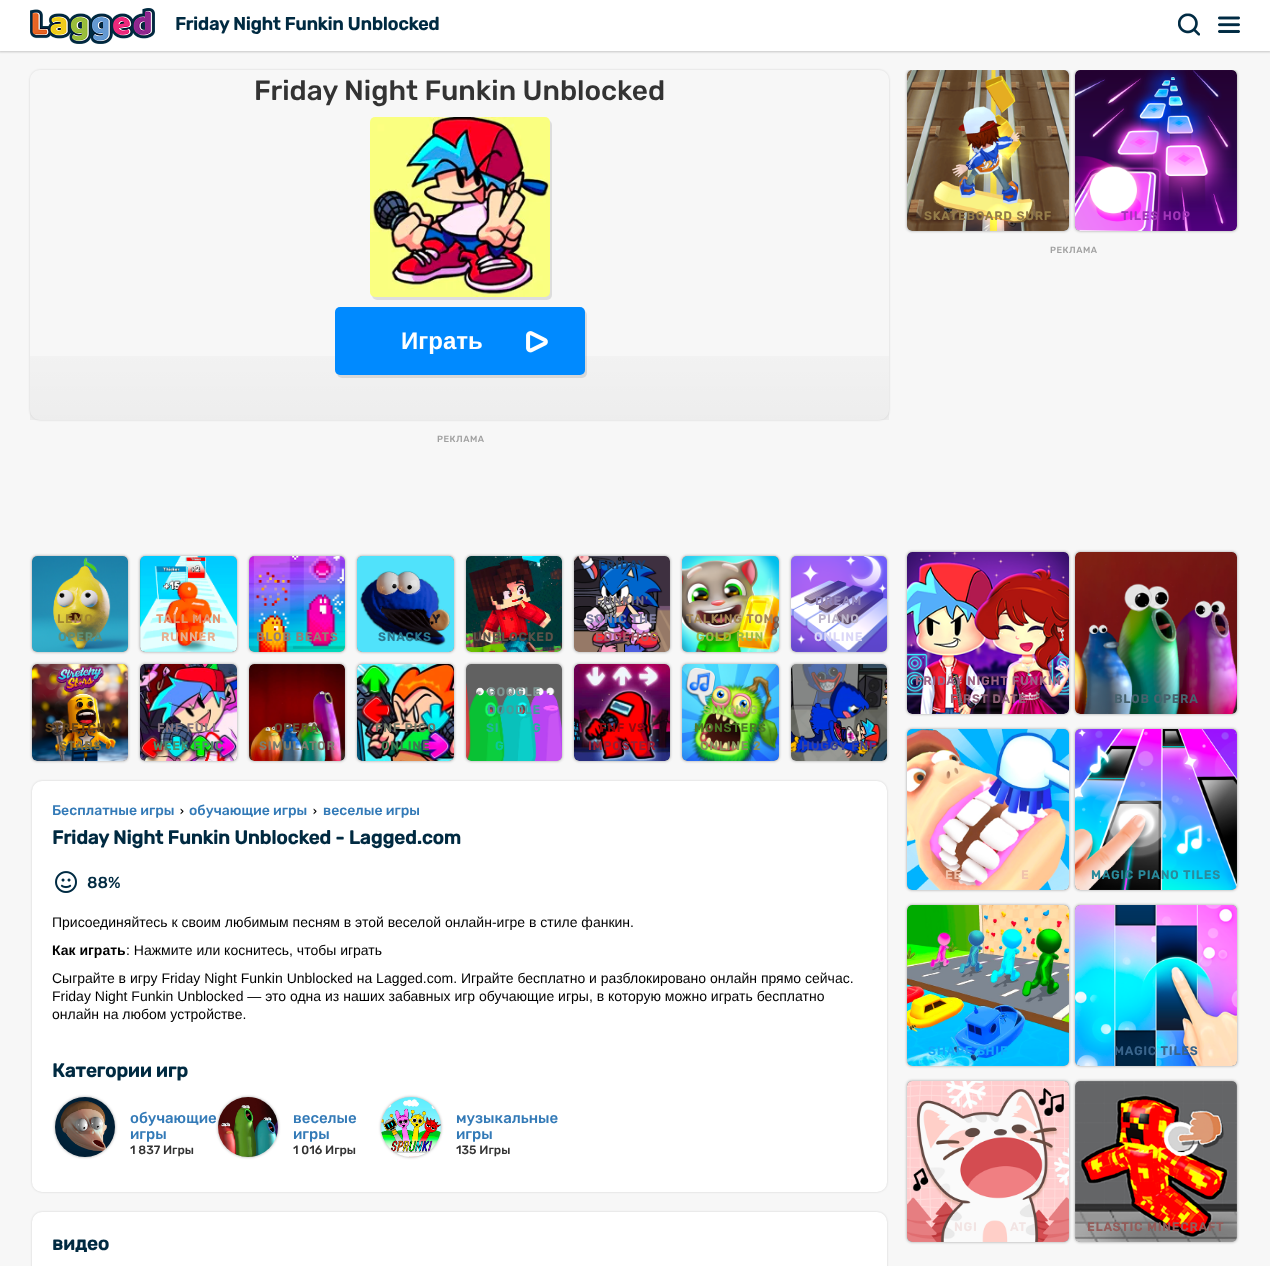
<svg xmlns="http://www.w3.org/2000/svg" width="1270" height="1266">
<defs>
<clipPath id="clip1"><path d="M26 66h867v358h-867zm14 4h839c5.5 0 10 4.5 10 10v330c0 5.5-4.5 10-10 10h-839c-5.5 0-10-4.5-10-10v-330c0-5.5 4.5-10 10-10z" clip-rule="evenodd"/></clipPath>
<linearGradient id="g1" gradientUnits="userSpaceOnUse" x1="460" y1="70" x2="460" y2="420"><stop offset="0.6" stop-color="#000" stop-opacity="0"/><stop offset="1" stop-color="#000" stop-opacity="0.04"/></linearGradient>
<clipPath id="clip2"><rect x="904" y="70" width="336" height="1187"/></clipPath>
</defs>
<rect width="100%" height="100%" fill="#f7f7f7"/>
<rect x="-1" y="-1" width="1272" height="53" fill="#00000033" filter="blur(1px)"/>
<rect width="1270" height="51" fill="#fff"/>
<image x="30" y="8" width="125" height="36" href="media/1.png"/>
<text x="175" y="30" style="font-family:Rubik;font-size:18px;font-weight:bold;fill:#002a41">Friday Night Funkin Unblocked</text>
<image x="1178" y="13" width="22" height="23" href="media/2.png"/>
<image x="1218" y="16" width="22" height="17" href="media/3.png"/>
<g clip-path="url(#clip1)">
<rect x="30" y="70" width="859" height="350" rx="10" fill="#00000026" filter="blur(1px)"/>
</g>
<rect x="30" y="356" width="859" height="64" fill="url(#g1)"/>
<text x="254" y="100" style="font-family:Rubik;font-size:28px;font-weight:500;fill:#333">Friday Night Funkin Unblocked</text>
<rect x="372" y="120" width="180" height="180" rx="5" fill="#0000001a" filter="blur(0.5px)"/>
<image x="370" y="117" width="180" height="180" href="media/4.png"/>
<rect x="337" y="310" width="250" height="68" rx="5" fill="#0000001a" filter="blur(0.5px)"/>
<rect x="335" y="307" width="250" height="68" rx="5" fill="#008aff"/>
<text x="401" y="349" style="font-family:Liberation Sans;font-size:24px;font-weight:bold;fill:#fff">Играть</text>
<image x="526" y="331" width="22" height="22" href="media/5.png"/>
<text x="437" y="442" style="font-family:Rubik;font-size:9px;font-weight:500;letter-spacing:0.5px;fill:#a0a0a0">РЕКЛАМА</text>
<rect x="32" y="556" width="96" height="96" rx="5" fill="#00000059" filter="blur(1.5px)"/>
<rect x="32" y="556" width="96" height="96" rx="5" fill="#0000002e"/>
<image x="32" y="556" width="96" height="96" href="media/6.png"/>
<text x="57" y="623" style="font-family:Rubik;font-size:12px;font-weight:bold;letter-spacing:1px;fill:#a18731">LEMO</text>
<text x="58" y="641" style="font-family:Rubik;font-size:12px;font-weight:bold;letter-spacing:1px;fill:#5e9079">OPERA</text>
<rect x="140" y="556" width="97" height="96" rx="5" fill="#00000059" filter="blur(1.5px)"/>
<rect x="140" y="556" width="97" height="96" rx="5" fill="#0000002e"/>
<image x="140" y="556" width="97" height="96" href="media/7.png"/>
<text x="156" y="623" style="font-family:Rubik;font-size:12px;font-weight:bold;letter-spacing:1px;fill:#e69670">TALL MAN</text>
<text x="161" y="641" style="font-family:Rubik;font-size:12px;font-weight:bold;letter-spacing:1px;fill:#e5af90">RUNNER</text>
<rect x="249" y="556" width="96" height="96" rx="5" fill="#00000059" filter="blur(1.5px)"/>
<rect x="249" y="556" width="96" height="96" rx="5" fill="#0000002e"/>
<image x="249" y="556" width="96" height="96" href="media/8.png"/>
<text x="256" y="641" style="font-family:Rubik;font-size:12px;font-weight:bold;letter-spacing:1px;fill:#957e77">BLOB BEATS</text>
<rect x="357" y="556" width="97" height="96" rx="5" fill="#00000059" filter="blur(1.5px)"/>
<rect x="357" y="556" width="97" height="96" rx="5" fill="#0000002e"/>
<image x="357" y="556" width="97" height="96" href="media/9.png"/>
<text x="432" y="623" style="font-family:Rubik;font-size:12px;font-weight:bold;letter-spacing:1px;fill:#1b1925">Y</text>
<text x="378" y="641" style="font-family:Rubik;font-size:12px;font-weight:bold;letter-spacing:1px;fill:#2c7990">SNACKS</text>
<rect x="466" y="556" width="96" height="96" rx="5" fill="#00000059" filter="blur(1.5px)"/>
<rect x="466" y="556" width="96" height="96" rx="5" fill="#0000002e"/>
<image x="466" y="556" width="96" height="96" href="media/10.png"/>
<text x="527" y="623" style="font-family:Rubik;font-size:12px;font-weight:bold;letter-spacing:1px;fill:#b40e1e">.</text>
<text x="473" y="641" style="font-family:Rubik;font-size:12px;font-weight:bold;letter-spacing:1px;fill:#5b5249">UNBLOCKED</text>
<rect x="574" y="556" width="96" height="96" rx="5" fill="#00000059" filter="blur(1.5px)"/>
<rect x="574" y="556" width="96" height="96" rx="5" fill="#0000002e"/>
<image x="574" y="556" width="96" height="96" href="media/11.png"/>
<text x="598" y="569" style="font-family:Rubik;font-size:12px;font-weight:bold;letter-spacing:1px;fill:#1d3f6b">FRIDAY</text>
<text x="595" y="605" style="font-family:Rubik;font-size:12px;font-weight:bold;letter-spacing:1px;fill:#706c7d">FUNKIN'</text>
<text x="586" y="623" style="font-family:Rubik;font-size:12px;font-weight:bold;letter-spacing:1px;fill:#8180a3">SONIC THE</text>
<text x="595" y="641" style="font-family:Rubik;font-size:12px;font-weight:bold;letter-spacing:1px;fill:#ab5b69">EDGEHOG</text>
<rect x="682" y="556" width="97" height="96" rx="5" fill="#00000059" filter="blur(1.5px)"/>
<rect x="682" y="556" width="97" height="96" rx="5" fill="#0000002e"/>
<image x="682" y="556" width="97" height="96" href="media/12.png"/>
<text x="686" y="623" style="font-family:Rubik;font-size:12px;font-weight:bold;letter-spacing:1px;fill:#a58756">TALKING TOM</text>
<text x="696" y="641" style="font-family:Rubik;font-size:12px;font-weight:bold;letter-spacing:1px;fill:#9dbb46">GOLD RUN</text>
<rect x="791" y="556" width="96" height="96" rx="5" fill="#00000059" filter="blur(1.5px)"/>
<rect x="791" y="556" width="96" height="96" rx="5" fill="#0000002e"/>
<image x="791" y="556" width="96" height="96" href="media/13.png"/>
<text x="815" y="605" style="font-family:Rubik;font-size:12px;font-weight:bold;letter-spacing:1px;fill:#9185b9">DREAM</text>
<text x="818" y="623" style="font-family:Rubik;font-size:12px;font-weight:bold;letter-spacing:1px;fill:#bdb5ca">PIANO</text>
<text x="814" y="641" style="font-family:Rubik;font-size:12px;font-weight:bold;letter-spacing:1px;fill:#dbd7f7">ONLINE</text>
<rect x="32" y="664" width="96" height="97" rx="5" fill="#00000059" filter="blur(1.5px)"/>
<rect x="32" y="664" width="96" height="97" rx="5" fill="#0000002e"/>
<image x="32" y="664" width="96" height="97" href="media/14.png"/>
<text x="45" y="732" style="font-family:Rubik;font-size:12px;font-weight:bold;letter-spacing:1px;fill:#62421b">STRETCHY</text>
<text x="59" y="750" style="font-family:Rubik;font-size:12px;font-weight:bold;letter-spacing:1px;fill:#806f3f">STARS</text>
<rect x="140" y="664" width="97" height="97" rx="5" fill="#00000059" filter="blur(1.5px)"/>
<rect x="140" y="664" width="97" height="97" rx="5" fill="#0000002e"/>
<image x="140" y="664" width="97" height="97" href="media/15.png"/>
<text x="157" y="732" style="font-family:Rubik;font-size:12px;font-weight:bold;letter-spacing:1px;fill:#86767f">FNF FULL</text>
<text x="153" y="750" style="font-family:Rubik;font-size:12px;font-weight:bold;letter-spacing:1px;fill:#4e8c6c">WEEK EPIC</text>
<rect x="249" y="664" width="96" height="97" rx="5" fill="#00000059" filter="blur(1.5px)"/>
<rect x="249" y="664" width="96" height="97" rx="5" fill="#0000002e"/>
<image x="249" y="664" width="96" height="97" href="media/16.png"/>
<text x="274" y="732" style="font-family:Rubik;font-size:12px;font-weight:bold;letter-spacing:1px;fill:#655437">OPERA</text>
<text x="259" y="750" style="font-family:Rubik;font-size:12px;font-weight:bold;letter-spacing:1px;fill:#7b7c6c">SIMULATOR</text>
<rect x="357" y="664" width="97" height="97" rx="5" fill="#00000059" filter="blur(1.5px)"/>
<rect x="357" y="664" width="97" height="97" rx="5" fill="#0000002e"/>
<image x="357" y="664" width="97" height="97" href="media/17.png"/>
<text x="375" y="732" style="font-family:Rubik;font-size:12px;font-weight:bold;letter-spacing:1px;fill:#6f7767">FNF PICO</text>
<text x="381" y="750" style="font-family:Rubik;font-size:12px;font-weight:bold;letter-spacing:1px;fill:#3f7952">ONLINE</text>
<rect x="466" y="664" width="96" height="97" rx="5" fill="#00000059" filter="blur(1.5px)"/>
<rect x="466" y="664" width="96" height="97" rx="5" fill="#0000002e"/>
<image x="466" y="664" width="96" height="97" href="media/18.png"/>
<text x="487" y="696" style="font-family:Rubik;font-size:12px;font-weight:bold;letter-spacing:1px;fill:#7e9693">GOOGLE</text>
<text x="487" y="714" style="font-family:Rubik;font-size:12px;font-weight:bold;letter-spacing:1px;fill:#419e9e">DOODLE</text>
<text x="486" y="732" style="font-family:Rubik;font-size:12px;font-weight:bold;letter-spacing:1px;fill:#22b59f">SI</text>
<text x="532" y="732" style="font-family:Rubik;font-size:12px;font-weight:bold;letter-spacing:1px;fill:#22b59f">G</text>
<text x="495" y="750" style="font-family:Rubik;font-size:12px;font-weight:bold;letter-spacing:1px;fill:#0ac89d">G</text>
<rect x="574" y="664" width="96" height="97" rx="5" fill="#00000059" filter="blur(1.5px)"/>
<rect x="574" y="664" width="96" height="97" rx="5" fill="#0000002e"/>
<image x="574" y="664" width="96" height="97" href="media/19.png"/>
<text x="599" y="732" style="font-family:Rubik;font-size:12px;font-weight:bold;letter-spacing:1px;fill:#93090f">FNF VS</text>
<text x="588" y="750" style="font-family:Rubik;font-size:12px;font-weight:bold;letter-spacing:1px;fill:#9b1e32">IMPOSTER</text>
<rect x="682" y="664" width="97" height="97" rx="5" fill="#00000059" filter="blur(1.5px)"/>
<rect x="682" y="664" width="97" height="97" rx="5" fill="#0000002e"/>
<image x="682" y="664" width="97" height="97" href="media/20.png"/>
<text x="703" y="714" style="font-family:Rubik;font-size:12px;font-weight:bold;letter-spacing:1px;fill:#9bc255">SINGING</text>
<text x="694" y="732" style="font-family:Rubik;font-size:12px;font-weight:bold;letter-spacing:1px;fill:#4d7928">MONSTERS</text>
<text x="700" y="750" style="font-family:Rubik;font-size:12px;font-weight:bold;letter-spacing:1px;fill:#85925e">ONLINE 2</text>
<rect x="791" y="664" width="96" height="97" rx="5" fill="#00000059" filter="blur(1.5px)"/>
<rect x="791" y="664" width="96" height="97" rx="5" fill="#0000002e"/>
<image x="791" y="664" width="96" height="97" href="media/21.png"/>
<text x="801" y="750" style="font-family:Rubik;font-size:12px;font-weight:bold;letter-spacing:1px;fill:#3b4298">HUGGY FNF</text>
<rect x="32" y="781" width="855" height="411" rx="10" fill="#00000026" filter="blur(1px)"/>
<rect x="32" y="781" width="855" height="411" rx="10" fill="#fff"/>
<text x="52" y="815" style="font-family:Rubik;font-size:14px;font-weight:500;fill:#337ab7">Бесплатные игры</text>
<text x="180" y="815" style="font-family:Rubik;font-size:11px;font-weight:500;fill:#000">›</text>
<text x="189" y="815" style="font-family:Rubik;font-size:14px;font-weight:500;fill:#337ab7">обучающие игры</text>
<text x="313" y="815" style="font-family:Rubik;font-size:11px;font-weight:500;fill:#000">›</text>
<text x="323" y="815" style="font-family:Rubik;font-size:14px;font-weight:500;fill:#337ab7">веселые игры</text>
<text x="52" y="844" style="font-family:Rubik;font-size:19px;font-weight:bold;fill:#002a41">Friday Night Funkin Unblocked - Lagged.com</text>
<image x="55" y="871" width="22" height="22" href="media/22.png"/>
<text x="87" y="888" style="font-family:Rubik;font-size:16px;font-weight:500;fill:#002a41">88%</text>
<text x="52" y="927" style="font-family:Liberation Sans;font-size:14px;fill:#000">Присоединяйтесь к своим любимым песням в этой веселой онлайн-игре в стиле фанкин.</text>
<text x="52" y="955" style="font-family:Liberation Sans;font-size:14px;font-weight:bold;fill:#000">Как играть</text>
<text x="126" y="955" style="font-family:Liberation Sans;font-size:14px;fill:#000">: Нажмите или коснитесь, чтобы играть</text>
<text x="52" y="983" style="font-family:Liberation Sans;font-size:14px;fill:#000">Сыграйте в игру Friday Night Funkin Unblocked на Lagged.com. Играйте бесплатно и разблокировано онлайн прямо сейчас.</text>
<text x="52" y="1001" style="font-family:Liberation Sans;font-size:14px;fill:#000">Friday Night Funkin Unblocked — это одна из наших забавных игр обучающие игры, в которую можно играть бесплатно</text>
<text x="52" y="1019" style="font-family:Liberation Sans;font-size:14px;fill:#000">онлайн на любом устройстве.</text>
<text x="52" y="1077" style="font-family:Rubik;font-size:19px;font-weight:bold;fill:#002a41">Категории игр</text>
<rect x="55" y="1097" width="60" height="60" rx="30" fill="#00000059" filter="blur(1.5px)"/>
<image x="55" y="1097" width="60" height="60" href="media/23.png"/>
<text x="130" y="1123" style="font-family:Rubik;font-size:15px;font-weight:500;fill:#337ab7">обучающие</text>
<text x="130" y="1139" style="font-family:Rubik;font-size:15px;font-weight:500;fill:#337ab7">игры</text>
<text x="130" y="1154" style="font-family:Rubik;font-size:12px;font-weight:500;fill:#333">1 837 Игры</text>
<rect x="218" y="1097" width="60" height="60" rx="30" fill="#00000059" filter="blur(1.5px)"/>
<image x="218" y="1097" width="60" height="60" href="media/24.png"/>
<text x="293" y="1123" style="font-family:Rubik;font-size:15px;font-weight:500;fill:#337ab7">веселые</text>
<text x="293" y="1139" style="font-family:Rubik;font-size:15px;font-weight:500;fill:#337ab7">игры</text>
<text x="293" y="1154" style="font-family:Rubik;font-size:12px;font-weight:500;fill:#333">1 016 Игры</text>
<rect x="381" y="1097" width="60" height="60" rx="30" fill="#00000059" filter="blur(1.5px)"/>
<image x="381" y="1097" width="60" height="60" href="media/25.png"/>
<text x="456" y="1123" style="font-family:Rubik;font-size:15px;font-weight:500;fill:#337ab7">музыкальные</text>
<text x="456" y="1139" style="font-family:Rubik;font-size:15px;font-weight:500;fill:#337ab7">игры</text>
<text x="456" y="1154" style="font-family:Rubik;font-size:12px;font-weight:500;fill:#333">135 Игры</text>
<rect x="32" y="1212" width="855" height="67" rx="10" fill="#00000026" filter="blur(1px)"/>
<rect x="32" y="1212" width="855" height="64" rx="10" fill="#fff"/>
<text x="52" y="1250" style="font-family:Rubik;font-size:19px;font-weight:bold;fill:#002a41">видео</text>
<g clip-path="url(#clip2)">
<rect x="907" y="70" width="162" height="161" rx="5" fill="#00000059" filter="blur(1.5px)"/>
</g>
<rect x="907" y="70" width="162" height="161" rx="5" fill="#0000002e"/>
<image x="907" y="70" width="162" height="161" href="media/26.png"/>
<text x="924" y="220" style="font-family:Rubik;font-size:12px;font-weight:bold;letter-spacing:1px;fill:#947c4a">SKATEBOARD SURF</text>
<g clip-path="url(#clip2)">
<rect x="1075" y="70" width="162" height="161" rx="5" fill="#00000059" filter="blur(1.5px)"/>
</g>
<rect x="1075" y="70" width="162" height="161" rx="5" fill="#0000002e"/>
<image x="1075" y="70" width="162" height="161" href="media/27.png"/>
<text x="1121" y="220" style="font-family:Rubik;font-size:12px;font-weight:bold;letter-spacing:1px;fill:#a336ba">TILES HOP</text>
<text x="1050" y="253" style="font-family:Rubik;font-size:9px;font-weight:500;letter-spacing:0.5px;fill:#a0a0a0">РЕКЛАМА</text>
<rect x="907" y="552" width="162" height="162" rx="5" fill="#00000059" filter="blur(1.5px)"/>
<rect x="907" y="552" width="162" height="162" rx="5" fill="#0000002e"/>
<image x="907" y="552" width="162" height="162" href="media/28.png"/>
<text x="915" y="685" style="font-family:Rubik;font-size:12px;font-weight:bold;letter-spacing:1px;fill:#9c6385">FRIDAY NIGHT FUNKIN</text>
<text x="950" y="703" style="font-family:Rubik;font-size:12px;font-weight:bold;letter-spacing:1px;fill:#8f6277">FIRST DATE</text>
<rect x="1075" y="552" width="162" height="162" rx="5" fill="#00000059" filter="blur(1.5px)"/>
<rect x="1075" y="552" width="162" height="162" rx="5" fill="#0000002e"/>
<image x="1075" y="552" width="162" height="162" href="media/29.png"/>
<text x="1114" y="703" style="font-family:Rubik;font-size:12px;font-weight:bold;letter-spacing:1px;fill:#47626d">BLOB OPERA</text>
<rect x="907" y="729" width="162" height="161" rx="5" fill="#00000059" filter="blur(1.5px)"/>
<rect x="907" y="729" width="162" height="161" rx="5" fill="#0000002e"/>
<image x="907" y="729" width="162" height="161" href="media/30.png"/>
<text x="945" y="879" style="font-family:Rubik;font-size:12px;font-weight:bold;letter-spacing:1px;fill:#f1c2ab">EE</text>
<text x="1021" y="879" style="font-family:Rubik;font-size:12px;font-weight:bold;letter-spacing:1px;fill:#f1c2ab">E</text>
<rect x="1075" y="729" width="162" height="161" rx="5" fill="#00000059" filter="blur(1.5px)"/>
<rect x="1075" y="729" width="162" height="161" rx="5" fill="#0000002e"/>
<image x="1075" y="729" width="162" height="161" href="media/31.png"/>
<text x="1091" y="879" style="font-family:Rubik;font-size:12px;font-weight:bold;letter-spacing:1px;fill:#2a8a9b">MAGIC PIANO TILES</text>
<rect x="907" y="905" width="162" height="161" rx="5" fill="#00000059" filter="blur(1.5px)"/>
<rect x="907" y="905" width="162" height="161" rx="5" fill="#0000002e"/>
<image x="907" y="905" width="162" height="161" href="media/32.png"/>
<text x="928" y="1055" style="font-family:Rubik;font-size:12px;font-weight:bold;letter-spacing:1px;fill:#12aafb">SHAPE SHIF</text>
<rect x="1075" y="905" width="162" height="161" rx="5" fill="#00000059" filter="blur(1.5px)"/>
<rect x="1075" y="905" width="162" height="161" rx="5" fill="#0000002e"/>
<image x="1075" y="905" width="162" height="161" href="media/33.png"/>
<text x="1114" y="1055" style="font-family:Rubik;font-size:12px;font-weight:bold;letter-spacing:1px;fill:#39648b">MAGIC TILES</text>
<rect x="907" y="1081" width="162" height="161" rx="5" fill="#00000059" filter="blur(1.5px)"/>
<rect x="907" y="1081" width="162" height="161" rx="5" fill="#0000002e"/>
<image x="907" y="1081" width="162" height="161" href="media/34.png"/>
<text x="954" y="1231" style="font-family:Rubik;font-size:12px;font-weight:bold;letter-spacing:1px;fill:#f2e4e3">NGI</text>
<text x="1010" y="1231" style="font-family:Rubik;font-size:12px;font-weight:bold;letter-spacing:1px;fill:#f2e4e3">AT</text>
<rect x="1075" y="1081" width="162" height="161" rx="5" fill="#00000059" filter="blur(1.5px)"/>
<rect x="1075" y="1081" width="162" height="161" rx="5" fill="#0000002e"/>
<image x="1075" y="1081" width="162" height="161" href="media/35.png"/>
<text x="1087" y="1231" style="font-family:Rubik;font-size:12px;font-weight:bold;letter-spacing:1px;fill:#945c5a">ELASTIC MINECRAFT</text>
</svg>
